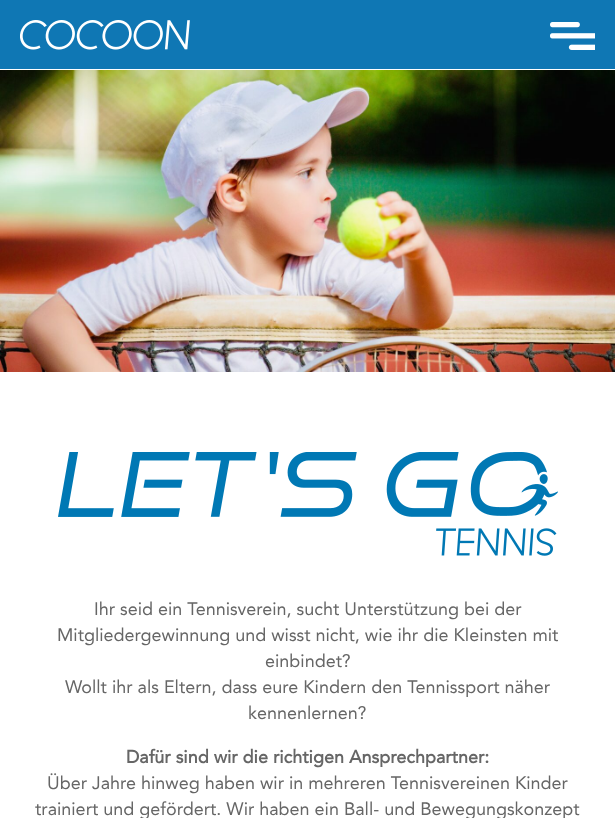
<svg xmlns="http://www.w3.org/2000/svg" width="615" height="818">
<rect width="100%" height="100%" fill="#fff"/>
<rect width="615" height="69" fill="#0f77b4"/>
<image x="20" y="20" width="170" height="30" href="media/1.png"/>
<image x="550" y="22" width="45" height="28" href="media/2.png"/>
<image x="0" y="70" width="615" height="302" href="media/3.png"/>
<image x="58" y="452" width="500" height="104" href="media/4.png"/>
<text x="94" y="615" style="font-family:Avenir;font-size:18px;fill:#666">Ihr seid ein Tennisverein, sucht Unterstützung bei der</text>
<text x="57" y="641" style="font-family:Avenir;font-size:18px;fill:#666">Mitgliedergewinnung und wisst nicht, wie ihr die Kleinsten mit</text>
<text x="265" y="667" style="font-family:Avenir;font-size:18px;fill:#666">einbindet?</text>
<text x="65" y="693" style="font-family:Avenir;font-size:18px;fill:#666">Wollt ihr als Eltern, dass eure Kindern den Tennissport näher</text>
<text x="248" y="719" style="font-family:Avenir;font-size:18px;fill:#666">kennenlernen?</text>
<text x="126" y="763" style="font-family:Avenir;font-size:18px;font-weight:bold;fill:#666">Dafür sind wir die richtigen Ansprechpartner:</text>
<text x="47" y="789" style="font-family:Avenir;font-size:18px;fill:#666">Über Jahre hinweg haben wir in mehreren Tennisvereinen Kinder</text>
<text x="35" y="815" style="font-family:Avenir;font-size:18px;fill:#666">trainiert und gefördert. Wir haben ein Ball- und Bewegungskonzept</text>
</svg>
